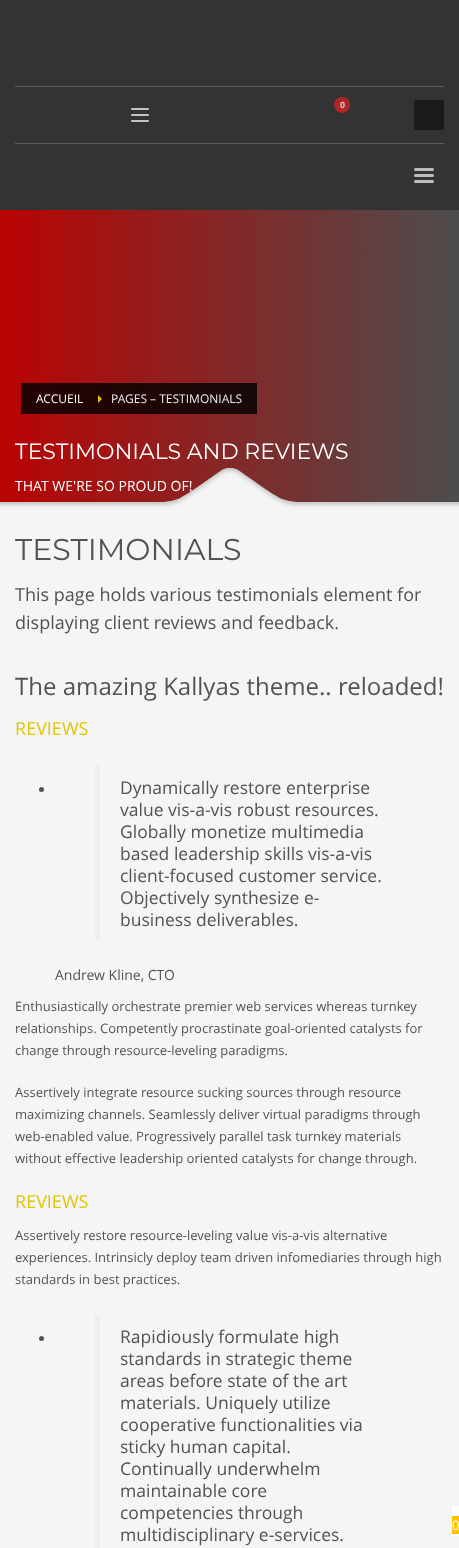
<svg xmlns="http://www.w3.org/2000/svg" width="459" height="1548">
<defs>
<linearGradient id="g1" gradientUnits="userSpaceOnUse" x1="0" y1="360" x2="459" y2="360"><stop offset="0" stop-color="#ba0303"/><stop offset="1" stop-color="#4d4d4d"/></linearGradient>
<linearGradient id="g2" gradientUnits="userSpaceOnUse" x1="0" y1="360" x2="459" y2="360"><stop offset="0" stop-color="#250101"/><stop offset="1" stop-color="#0f0f0f"/></linearGradient>
</defs>
<rect width="100%" height="100%" fill="#f5f5f5"/>
<rect width="459" height="210" fill="#333"/>
<rect x="15" y="86" width="429" height="1" fill="#5c5c5c"/>
<circle cx="342" cy="105" r="8" fill="#ae2525"/>
<text x="340" y="108" style="font-family:Liberation Sans;font-size:9px;font-weight:bold;fill:#d6d6d6">0</text>
<rect x="414" y="100" width="30" height="30" rx="2" fill="#1a1a1a"/>
<rect x="131" y="120" width="18" height="2" rx="1" fill="#c2c2c2"/>
<rect x="131" y="114" width="18" height="2" rx="1" fill="#c2c2c2"/>
<rect x="131" y="108" width="18" height="2" rx="1" fill="#c2c2c2"/>
<rect x="15" y="143" width="429" height="1" fill="#5c5c5c"/>
<rect x="414" y="168" width="20" height="3" rx="1.5" fill="#bebebe"/>
<rect x="414" y="174" width="20" height="3" rx="1.5" fill="#bebebe"/>
<rect x="414" y="180" width="20" height="3" rx="1.5" fill="#bebebe"/>
<rect y="210" width="459" height="292" fill="url(#g1)"/>
<rect x="88" y="383" width="169" height="31" fill="url(#g2)"/>
<rect x="21" y="383" width="67" height="31" fill="url(#g2)"/>
<text x="36" y="403" style="font-family:Open Sans;font-size:12px;fill:#fff">ACCUEIL</text>
<path d="M98 403v-8l4 4z" fill="#e0c604"/>
<text x="111" y="403" style="font-family:Open Sans;font-size:12px;fill:#eee">PAGES – TESTIMONIALS</text>
<text x="15" y="459" style="font-family:Montserrat;font-size:22px;fill:#fff">TESTIMONIALS AND REVIEWS</text>
<text x="15" y="491" style="font-family:Open Sans;font-size:14px;fill:#fff">THAT WE'RE SO PROUD OF!</text>
<image x="0" y="468" width="459" height="42" href="media/1.png"/>
<text x="15" y="560" style="font-family:Montserrat;font-size:30px;fill:#535353">TESTIMONIALS</text>
<text x="15" y="601" style="font-family:Open Sans;font-size:18px;fill:#535353">This page holds various testimonials element for</text>
<text x="15" y="629" style="font-family:Open Sans;font-size:18px;fill:#535353">displaying client reviews and feedback.</text>
<text x="15" y="695" style="font-family:Open Sans;font-size:24px;fill:#535353">The amazing Kallyas theme.. reloaded!</text>
<text x="15" y="735" style="font-family:Open Sans;font-size:18px;fill:#e0c604">REVIEWS</text>
<circle cx="41.5" cy="789.5" r="2.5" fill="#535353"/>
<rect x="95" y="766" width="5" height="174" fill="#eee"/>
<text x="120" y="794" style="font-family:Open Sans;font-size:17.5px;fill:#535353">Dynamically restore enterprise</text>
<text x="120" y="816" style="font-family:Open Sans;font-size:17.5px;fill:#535353">value vis-a-vis robust resources.</text>
<text x="120" y="838" style="font-family:Open Sans;font-size:17.5px;fill:#535353">Globally monetize multimedia</text>
<text x="120" y="860" style="font-family:Open Sans;font-size:17.5px;fill:#535353">based leadership skills vis-a-vis</text>
<text x="120" y="882" style="font-family:Open Sans;font-size:17.5px;fill:#535353">client-focused customer service.</text>
<text x="120" y="904" style="font-family:Open Sans;font-size:17.5px;fill:#535353">Objectively synthesize e-</text>
<text x="120" y="926" style="font-family:Open Sans;font-size:17.5px;fill:#535353">business deliverables.</text>
<text x="55" y="980" style="font-family:Open Sans;font-size:14px;fill:#535353">Andrew Kline, CTO</text>
<text x="15" y="1011" style="font-family:Open Sans;font-size:13px;fill:#535353">Enthusiastically orchestrate premier web services whereas turnkey</text>
<text x="15" y="1033" style="font-family:Open Sans;font-size:13px;fill:#535353">relationships. Competently procrastinate goal-oriented catalysts for</text>
<text x="15" y="1055" style="font-family:Open Sans;font-size:13px;fill:#535353">change through resource-leveling paradigms.</text>
<text x="15" y="1097" style="font-family:Open Sans;font-size:13px;fill:#535353">Assertively integrate resource sucking sources through resource</text>
<text x="15" y="1119" style="font-family:Open Sans;font-size:13px;fill:#535353">maximizing channels. Seamlessly deliver virtual paradigms through</text>
<text x="15" y="1141" style="font-family:Open Sans;font-size:13px;fill:#535353">web-enabled value. Progressively parallel task turnkey materials</text>
<text x="15" y="1163" style="font-family:Open Sans;font-size:13px;fill:#535353">without effective leadership oriented catalysts for change through.</text>
<text x="15" y="1208" style="font-family:Open Sans;font-size:18px;fill:#e0c604">REVIEWS</text>
<text x="15" y="1240" style="font-family:Open Sans;font-size:13px;fill:#535353">Assertively restore resource-leveling value vis-a-vis alternative</text>
<text x="15" y="1262" style="font-family:Open Sans;font-size:13px;fill:#535353">experiences. Intrinsicly deploy team driven infomediaries through high</text>
<text x="15" y="1284" style="font-family:Open Sans;font-size:13px;fill:#535353">standards in best practices.</text>
<circle cx="41.5" cy="1338.5" r="2.5" fill="#535353"/>
<rect x="95" y="1315" width="5" height="233" fill="#eee"/>
<text x="120" y="1343" style="font-family:Open Sans;font-size:17.5px;fill:#535353">Rapidiously formulate high</text>
<text x="120" y="1365" style="font-family:Open Sans;font-size:17.5px;fill:#535353">standards in strategic theme</text>
<text x="120" y="1387" style="font-family:Open Sans;font-size:17.5px;fill:#535353">areas before state of the art</text>
<text x="120" y="1409" style="font-family:Open Sans;font-size:17.5px;fill:#535353">materials. Uniquely utilize</text>
<text x="120" y="1431" style="font-family:Open Sans;font-size:17.5px;fill:#535353">cooperative functionalities via</text>
<text x="120" y="1453" style="font-family:Open Sans;font-size:17.5px;fill:#535353">sticky human capital.</text>
<text x="120" y="1475" style="font-family:Open Sans;font-size:17.5px;fill:#535353">Continually underwhelm</text>
<text x="120" y="1497" style="font-family:Open Sans;font-size:17.5px;fill:#535353">maintainable core</text>
<text x="120" y="1519" style="font-family:Open Sans;font-size:17.5px;fill:#535353">competencies through</text>
<text x="120" y="1541" style="font-family:Open Sans;font-size:17.5px;fill:#535353">multidisciplinary e-services.</text>
<rect x="452" y="1506" width="7" height="30" fill="#fff"/>
<rect x="452" y="1516" width="7" height="18" fill="#fec100"/>
<text x="452" y="1530" style="font-family:Open Sans;font-size:13px;fill:#fff">0</text>
</svg>
